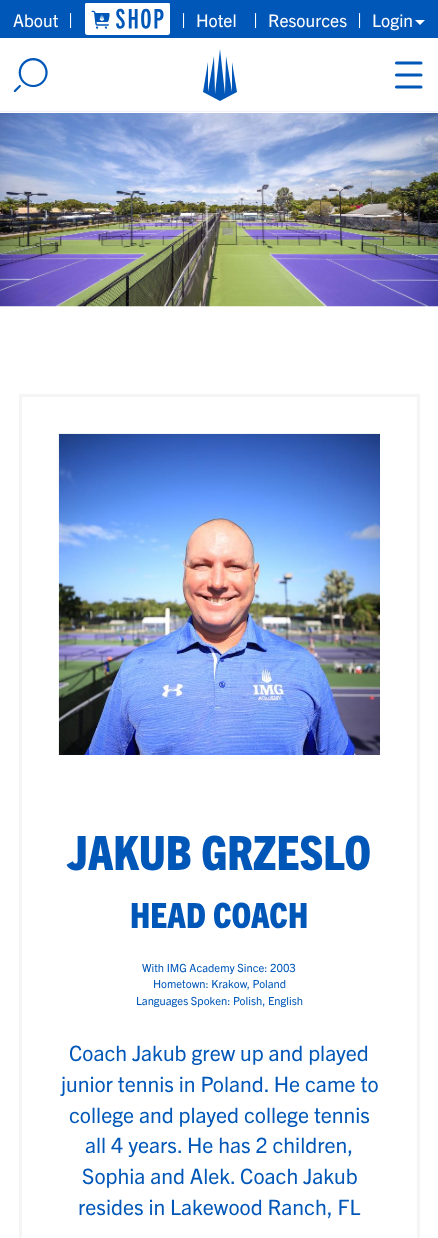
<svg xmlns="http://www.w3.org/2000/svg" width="438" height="1238">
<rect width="100%" height="100%" fill="#fff"/>
<rect width="438" height="38" fill="#0057b8"/>
<text x="13" y="27" style="font-family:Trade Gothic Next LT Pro;font-size:17.5px;fill:#fff">About</text>
<text x="68" y="27" style="font-family:Trade Gothic Next LT Pro;font-size:19px;fill:#fff">|</text>
<image x="85" y="3" width="85" height="32" href="media/1.png"/>
<text x="181" y="27" style="font-family:Trade Gothic Next LT Pro;font-size:19px;fill:#fff">|</text>
<text x="196" y="27" style="font-family:Trade Gothic Next LT Pro;font-size:17.5px;fill:#fff">Hotel</text>
<text x="253" y="27" style="font-family:Trade Gothic Next LT Pro;font-size:19px;fill:#fff">|</text>
<text x="268" y="27" style="font-family:Trade Gothic Next LT Pro;font-size:17.5px;fill:#fff">Resources</text>
<text x="357" y="27" style="font-family:Trade Gothic Next LT Pro;font-size:19px;fill:#fff">|</text>
<text x="372" y="27" style="font-family:Trade Gothic Next LT Pro;font-size:17.5px;fill:#fff">Login</text>
<path d="M415 20h10l-5 5z" fill="#fff"/>
<rect y="111" width="438" height="1" fill="#eff2f6"/>
<image x="13" y="58" width="35" height="35" href="media/2.png"/>
<path d="M237 92l-5-30v30l-6-36l-1 38l-5-45l-5 45l-1-38l-6 36v-30l-5 30l17 9z" fill="#0057b8"/>
<path d="M396.5 63h24.5m-24.5 12h24.5m-24.5 12h24.5" fill="none" stroke="#0057b8" stroke-width="3.1" stroke-linecap="round" stroke-linejoin="round"/>
<image x="0" y="113" width="438" height="194" href="media/3.png"/>
<rect x="20.5" y="395.5" width="398" height="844" fill="none" stroke="#f5f5f5" stroke-width="3"/>
<image x="58" y="433" width="322" height="322" href="media/4.png"/>
<text x="67" y="870" style="font-family:Trade Gothic Next LT Pro;font-size:47.5px;font-weight:800;fill:#0057b8">JAKUB GRZESLO</text>
<text x="130" y="928" style="font-family:Trade Gothic Next LT Pro;font-size:35px;font-weight:800;fill:#0057b8">HEAD COACH</text>
<text x="142" y="972" style="font-family:Trade Gothic Next LT Pro;font-size:11.25px;fill:#0057b8">With IMG Academy Since: 2003</text>
<text x="153" y="988" style="font-family:Trade Gothic Next LT Pro;font-size:11.25px;fill:#0057b8">Hometown: Krakow, Poland</text>
<text x="136" y="1005" style="font-family:Trade Gothic Next LT Pro;font-size:11.25px;fill:#0057b8">Languages Spoken: Polish, English</text>
<text x="69" y="1061" style="font-family:Trade Gothic Next LT Pro;font-size:21.25px;fill:#0057b8">Coach Jakub grew up and played</text>
<text x="61" y="1092" style="font-family:Trade Gothic Next LT Pro;font-size:21.25px;fill:#0057b8">junior tennis in Poland. He came to</text>
<text x="69" y="1123" style="font-family:Trade Gothic Next LT Pro;font-size:21.25px;fill:#0057b8">college and played college tennis</text>
<text x="85" y="1153" style="font-family:Trade Gothic Next LT Pro;font-size:21.25px;fill:#0057b8">all 4 years. He has 2 children,</text>
<text x="82" y="1184" style="font-family:Trade Gothic Next LT Pro;font-size:21.25px;fill:#0057b8">Sophia and Alek. Coach Jakub</text>
<text x="78" y="1215" style="font-family:Trade Gothic Next LT Pro;font-size:21.25px;fill:#0057b8">resides in Lakewood Ranch, FL</text>
</svg>
